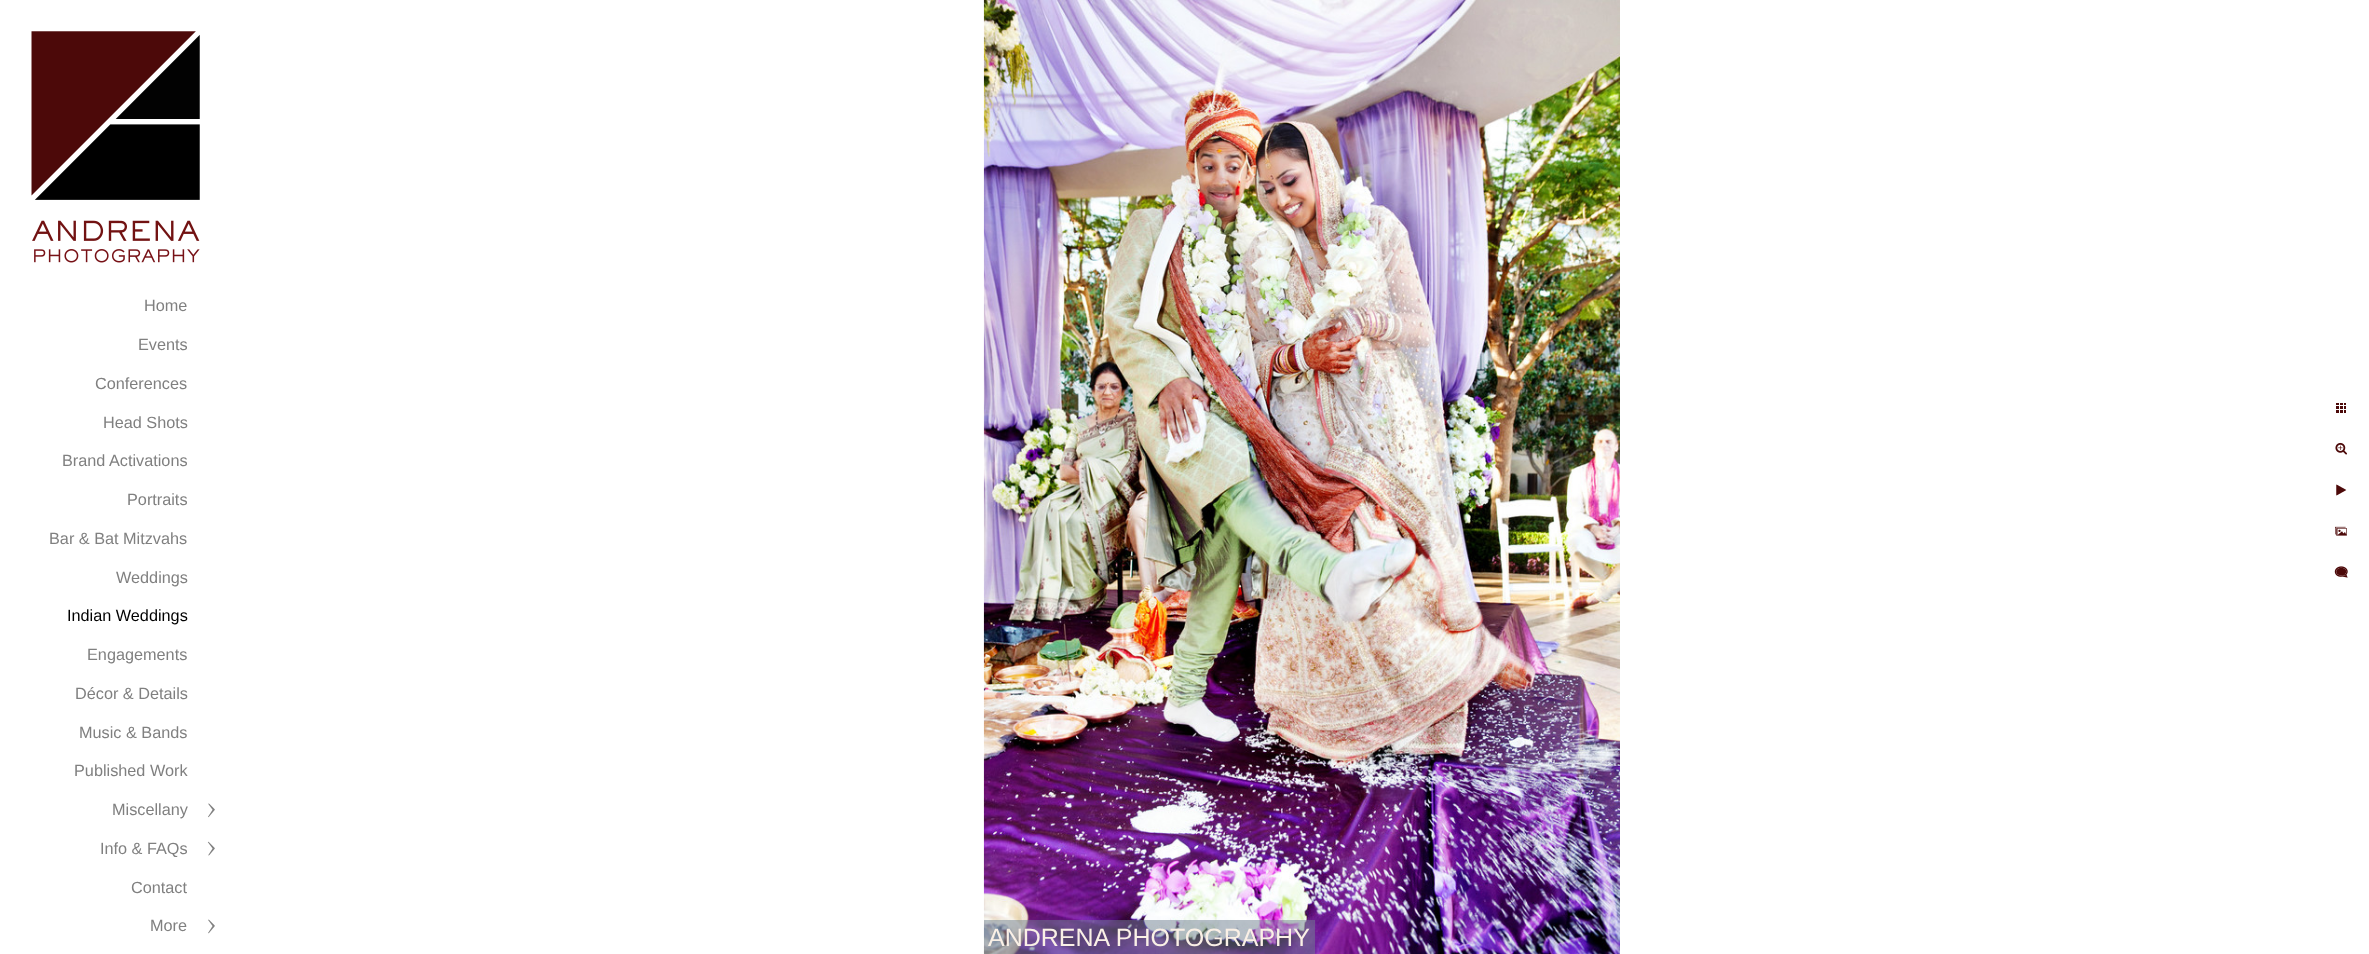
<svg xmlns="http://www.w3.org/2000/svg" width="2369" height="954">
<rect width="100%" height="100%" fill="#fff"/>
<image x="31" y="31" width="169" height="232" href="media/1.png"/>
<text x="144" y="311" style="font-family:Liberation Sans;font-size:16.25px;fill:#808080">Home</text>
<text x="138" y="350" style="font-family:Liberation Sans;font-size:16.25px;fill:#808080">Events</text>
<text x="95" y="389" style="font-family:Liberation Sans;font-size:16.25px;fill:#808080">Conferences</text>
<text x="103" y="428" style="font-family:Liberation Sans;font-size:16.25px;fill:#808080">Head Shots</text>
<text x="62" y="466" style="font-family:Liberation Sans;font-size:16.25px;fill:#808080">Brand Activations</text>
<text x="127" y="505" style="font-family:Liberation Sans;font-size:16.25px;fill:#808080">Portraits</text>
<text x="49" y="544" style="font-family:Liberation Sans;font-size:16.25px;fill:#808080">Bar &amp; Bat Mitzvahs</text>
<text x="116" y="583" style="font-family:Liberation Sans;font-size:16.25px;fill:#808080">Weddings</text>
<text x="67" y="621" style="font-family:Liberation Sans;font-size:16.25px;fill:#000">Indian Weddings</text>
<text x="87" y="660" style="font-family:Liberation Sans;font-size:16.25px;fill:#808080">Engagements</text>
<text x="75" y="699" style="font-family:Liberation Sans;font-size:16.25px;fill:#808080">Décor &amp; Details</text>
<text x="79" y="738" style="font-family:Liberation Sans;font-size:16.25px;fill:#808080">Music &amp; Bands</text>
<text x="74" y="776" style="font-family:Liberation Sans;font-size:16.25px;fill:#808080">Published Work</text>
<text x="112" y="815" style="font-family:Liberation Sans;font-size:16.25px;fill:#808080">Miscellany</text>
<image x="208" y="803" width="7" height="15" href="media/2.png"/>
<text x="100" y="854" style="font-family:Liberation Sans;font-size:16.25px;fill:#808080">Info &amp; FAQs</text>
<image x="207" y="841" width="8" height="15" href="media/3.png"/>
<text x="131" y="893" style="font-family:Liberation Sans;font-size:16.25px;fill:#808080">Contact</text>
<text x="150" y="931" style="font-family:Liberation Sans;font-size:16.25px;fill:#808080">More</text>
<image x="208" y="919" width="7" height="15" href="media/4.png"/>
<image x="2336" y="403" width="10" height="10" href="media/5.png"/>
<image x="2335" y="442" width="12" height="13" href="media/6.png"/>
<image x="2336" y="484" width="11" height="12" href="media/7.png"/>
<image x="2335" y="526" width="12" height="10" href="media/8.png"/>
<image x="2334" y="566" width="14" height="12" href="media/9.png"/>
<image x="983" y="0" width="637" height="954" href="media/10.png"/>
<rect x="984" y="920" width="331" height="34" fill="#70809080"/>
<text x="988" y="946" style="font-family:Liberation Sans;font-size:25px;fill:#faf0e6">ANDRENA PHOTOGRAPHY</text>
</svg>
